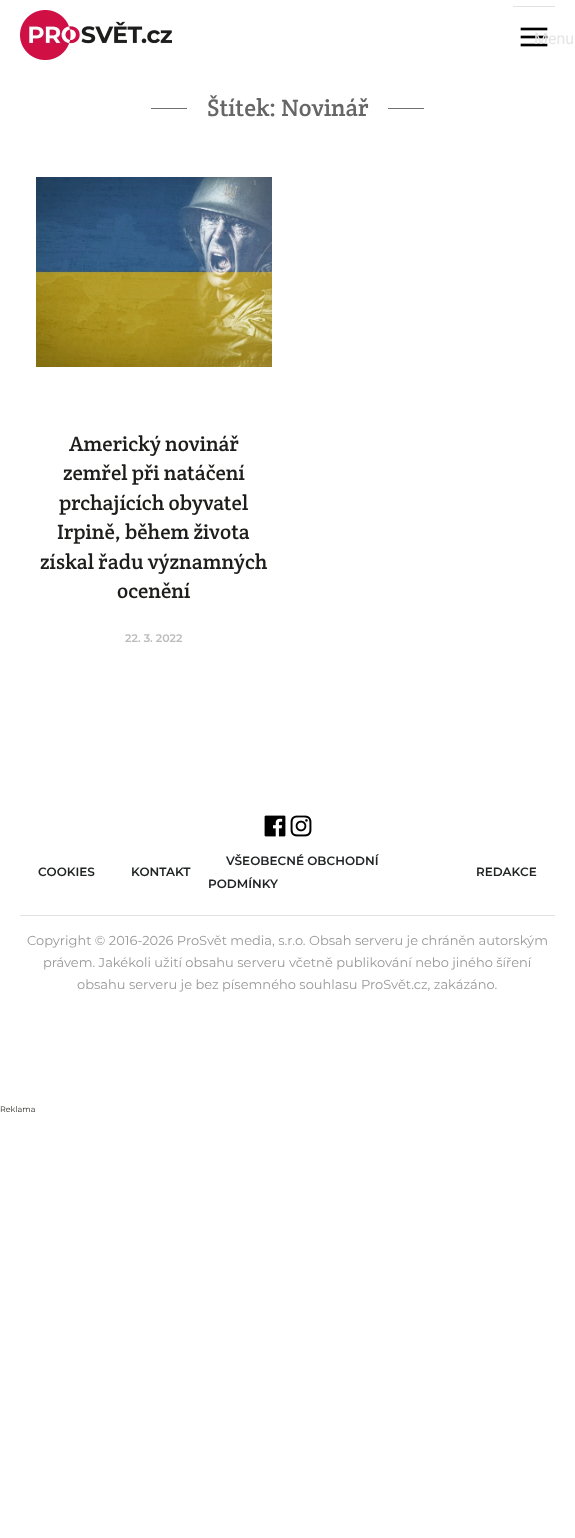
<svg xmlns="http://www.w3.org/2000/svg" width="575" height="1538">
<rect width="100%" height="100%" fill="#fff"/>
<image x="20" y="10" width="152" height="50" href="media/1.png"/>
<rect x="513" y="6" width="42" height="1" fill="#e2e2e2"/>
<image x="520" y="27" width="28" height="20" href="media/2.png"/>
<text x="534" y="44" style="font-family:Roboto;font-size:16px;fill:#e5e5e5">Menu</text>
<rect x="151" y="108" width="36" height="1" fill="#707070"/>
<text x="207" y="116" style="font-family:Crete Round;font-size:24px;fill:#666">Štítek: Novinář</text>
<rect x="388" y="108" width="36" height="1" fill="#707070"/>
<image x="36" y="177" width="236" height="190" href="media/3.png"/>
<text x="69" y="451" style="font-family:Crete Round;font-size:21px;fill:#1d1d1b">Americký novinář</text>
<text x="63" y="480" style="font-family:Crete Round;font-size:21px;fill:#1d1d1b">zemřel při natáčení</text>
<text x="59" y="510" style="font-family:Crete Round;font-size:21px;fill:#1d1d1b">prchajících obyvatel</text>
<text x="57" y="539" style="font-family:Crete Round;font-size:21px;fill:#1d1d1b">Irpině, během života</text>
<text x="40" y="569" style="font-family:Crete Round;font-size:21px;fill:#1d1d1b">získal řadu významných</text>
<text x="117" y="598" style="font-family:Crete Round;font-size:21px;fill:#1d1d1b">ocenění</text>
<text x="125" y="642" style="font-family:Montserrat;font-size:11px;font-weight:100;fill:#bbb">22. 3. 2022</text>
<image x="264" y="815" width="22" height="22" href="media/4.png"/>
<image x="290" y="815" width="22" height="22" href="media/5.png"/>
<text x="38" y="876" style="font-family:Montserrat;font-size:12px;font-weight:100;fill:#212425">COOKIES</text>
<text x="131" y="876" style="font-family:Montserrat;font-size:12px;font-weight:100;fill:#212425">KONTAKT</text>
<text x="226" y="865" style="font-family:Montserrat;font-size:12px;font-weight:100;fill:#212425">VŠEOBECNÉ OBCHODNÍ</text>
<text x="208" y="888" style="font-family:Montserrat;font-size:12px;font-weight:100;fill:#212425">PODMÍNKY</text>
<text x="476" y="876" style="font-family:Montserrat;font-size:12px;font-weight:100;fill:#212425">REDAKCE</text>
<rect x="20" y="915" width="535" height="1" fill="#e2e2e2"/>
<text x="27" y="945" style="font-family:'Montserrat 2';font-size:13px;font-weight:100;fill:#999">Copyright © 2016-2026 ProSvět media, s.r.o. Obsah serveru je chráněn autorským</text>
<text x="43" y="967" style="font-family:'Montserrat 2';font-size:13px;font-weight:100;fill:#999">právem. Jakékoli užití obsahu serveru včetně publikování nebo jiného šíření</text>
<text x="77" y="989" style="font-family:'Montserrat 2';font-size:13px;font-weight:100;fill:#999">obsahu serveru je bez písemného souhlasu ProSvět.cz, zakázáno.</text>
<text x="0" y="1112" style="font-family:'Montserrat 2';font-size:8px;font-weight:100;fill:#1d1d1b">Reklama</text>
</svg>
